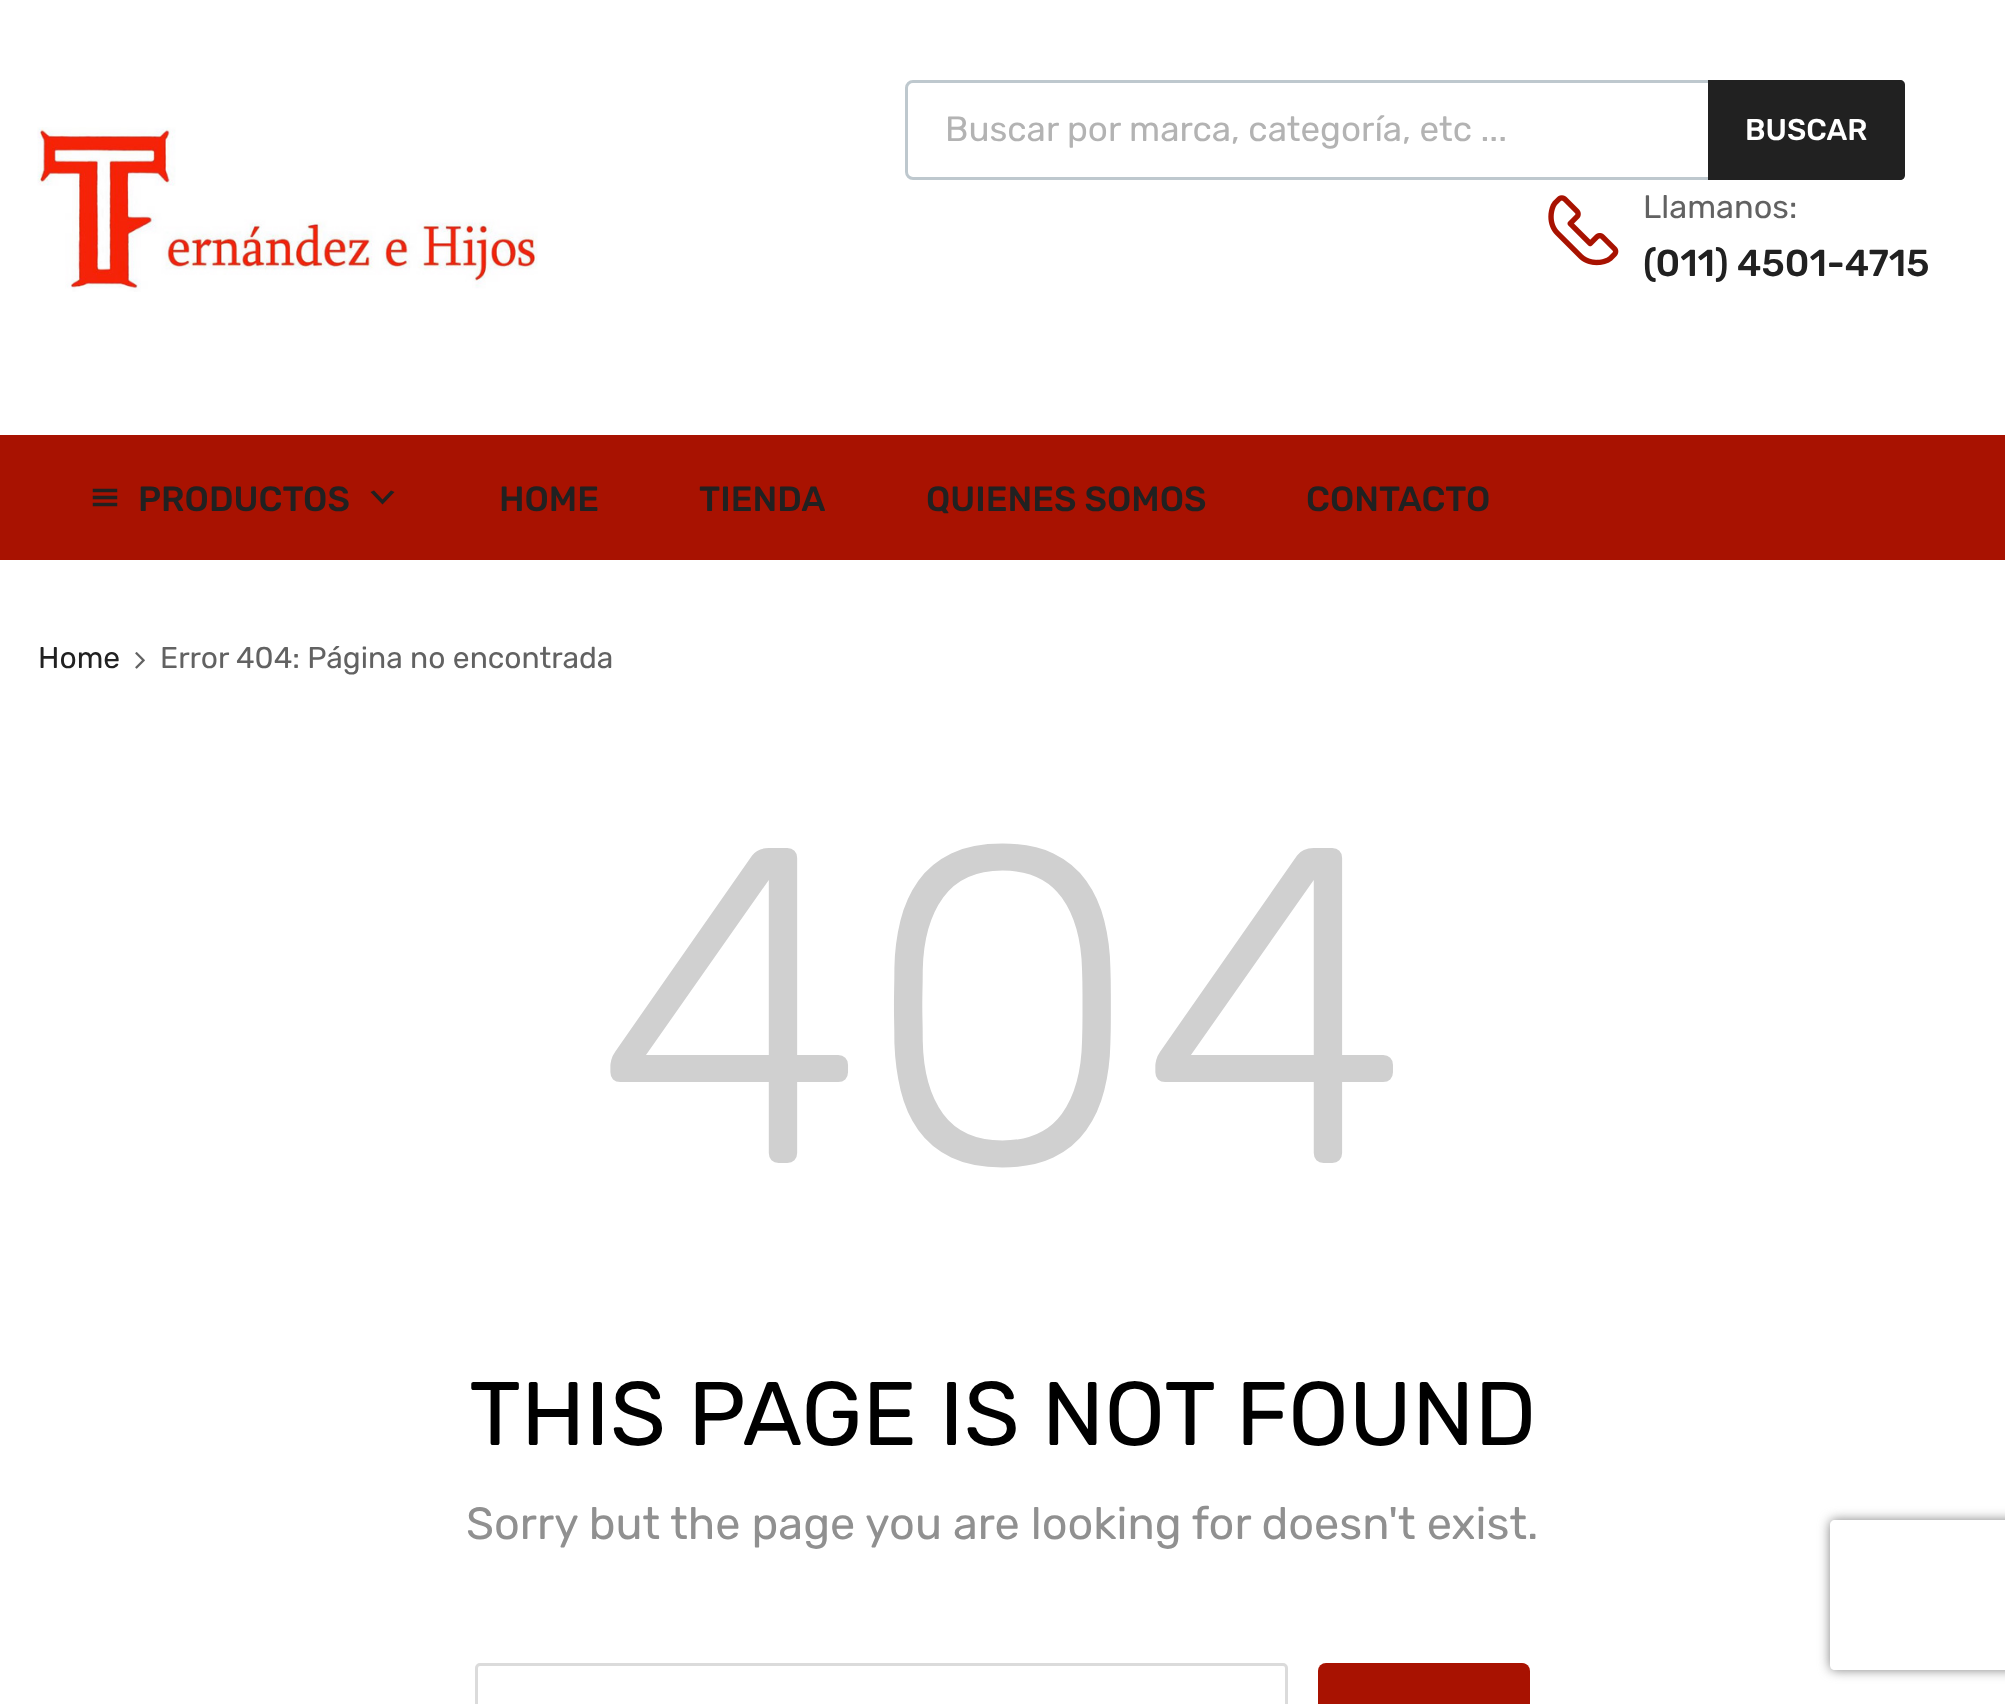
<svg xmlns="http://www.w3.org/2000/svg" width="2005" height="1704">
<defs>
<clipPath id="clip1"><path d="M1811 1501h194v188h-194zm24 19h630c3 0 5 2 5 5v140c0 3-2 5-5 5h-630c-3 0-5-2-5-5v-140c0-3 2-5 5-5z" clip-rule="evenodd"/></clipPath>
</defs>
<rect width="100%" height="100%" fill="#fff"/>
<image x="37" y="127" width="501" height="165" href="media/1.png"/>
<rect x="906.5" y="81.5" width="997" height="97" rx="6.5" fill="none" stroke="#bec8ce" stroke-width="3"/>
<text x="945" y="141" style="font-family:Rubik;font-size:35px;fill:#b3b3b3">Buscar por marca, categoría, etc ...</text>
<path d="M1708 80h192c3 0 5 2 5 5v90c0 3-2 5-5 5h-192z" fill="#212121"/>
<text x="1745" y="140" style="font-family:Rubik;font-size:30px;font-weight:500;fill:#fff">BUSCAR</text>
<image x="1548" y="195" width="71" height="71" href="media/2.png"/>
<text x="1643" y="218" style="font-family:Rubik;font-size:32.5px;fill:#626262">Llamanos:</text>
<text x="1643" y="276" style="font-family:Rubik;font-size:37.5px;font-weight:500;fill:#212121">(011) 4501-4715</text>
<rect y="435" width="2005" height="125" fill="#a81201"/>
<image x="92" y="488" width="26" height="19" href="media/3.png"/>
<text x="138" y="511" style="font-family:Rubik;font-size:35px;font-weight:500;fill:#212121">PRODUCTOS</text>
<path d="M374 490.5l8.5 9l8.5-9l3.5 1.5l-12 12.5l-12-12.5z" fill="#212121"/>
<text x="499" y="511" style="font-family:Rubik;font-size:35px;font-weight:500;fill:#212121">HOME</text>
<text x="699" y="511" style="font-family:Rubik;font-size:35px;font-weight:500;fill:#212121">TIENDA</text>
<text x="926" y="511" style="font-family:Rubik;font-size:35px;font-weight:500;fill:#212121">QUIENES SOMOS</text>
<text x="1306" y="511" style="font-family:Rubik;font-size:35px;font-weight:500;fill:#212121">CONTACTO</text>
<text x="38" y="668" style="font-family:Rubik;font-size:30px;fill:#212121">Home</text>
<image x="135" y="652" width="10" height="17" href="media/4.png"/>
<text x="160" y="668" style="font-family:Rubik;font-size:30px;fill:#626262">Error 404: Página no encontrada</text>
<text x="596" y="1163" style="font-family:Rubik;font-size:450px;font-weight:300;fill:#d0d0d0">404</text>
<text x="469" y="1445" style="font-family:Rubik;font-size:90px;fill:#000">THIS PAGE IS NOT FOUND</text>
<text x="466" y="1539" style="font-family:Rubik;font-size:45px;fill:#909090">Sorry but the page you are looking for doesn't exist.</text>
<rect x="476.5" y="1664.5" width="810" height="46" rx="3.5" fill="none" stroke="#dbdbdb" stroke-width="3"/>
<rect x="1318" y="1663" width="212" height="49" rx="8" fill="#a81201"/>
<g clip-path="url(#clip1)">
<rect x="1830" y="1520" width="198" height="150" rx="5" fill="#808080" filter="blur(6px)"/>
</g>
</svg>
